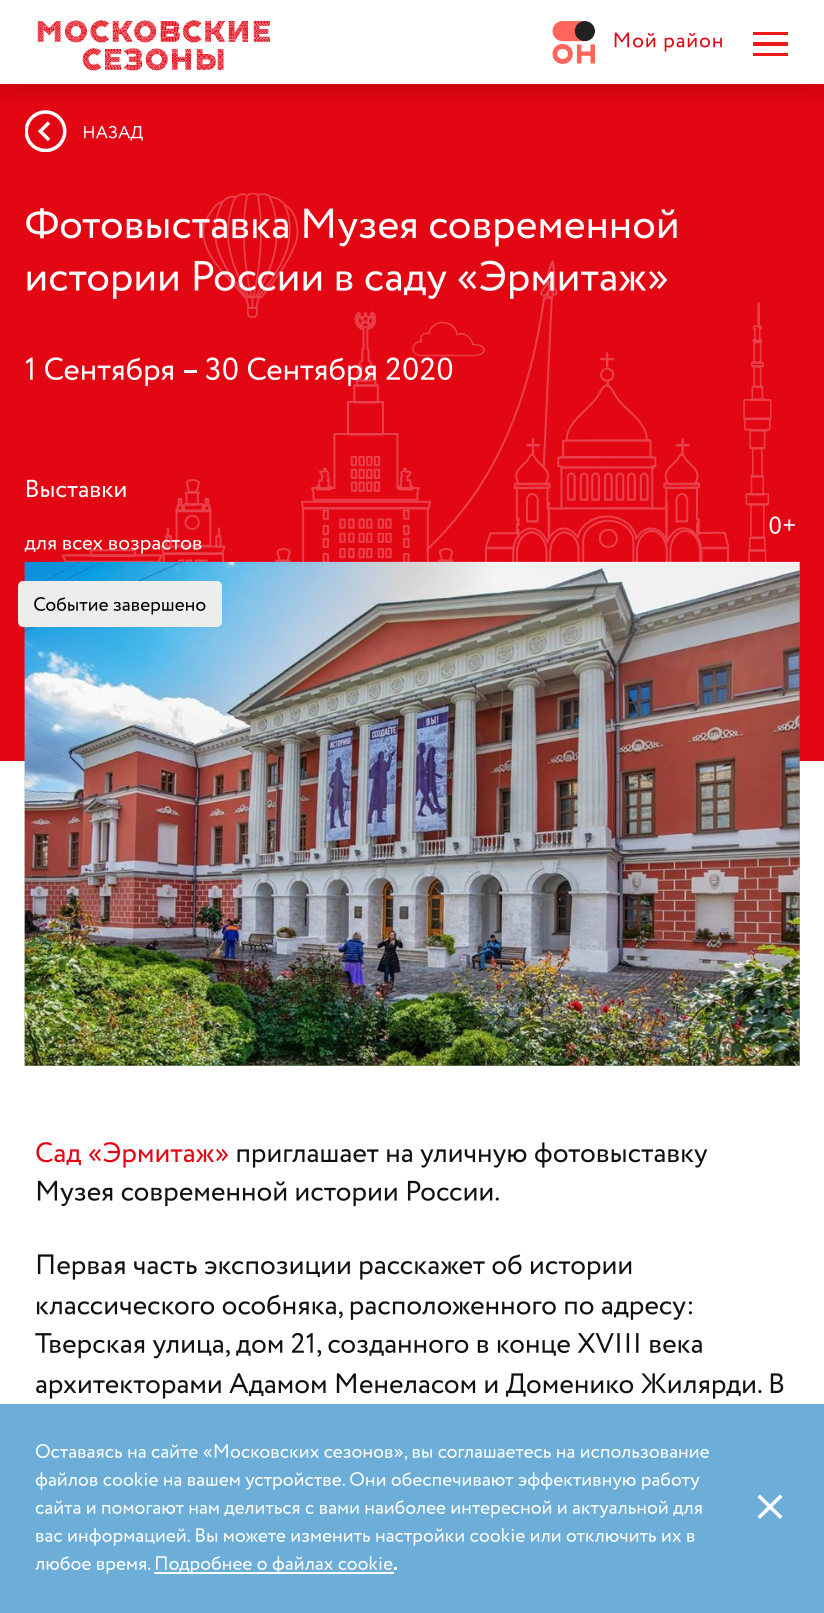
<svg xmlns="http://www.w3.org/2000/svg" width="824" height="1613">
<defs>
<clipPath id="clip1"><rect x="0" y="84" width="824" height="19"/></clipPath>
</defs>
<rect width="100%" height="100%" fill="#fff"/>
<rect y="84" width="824" height="677" fill="#e30613"/>
<image x="25" y="110" width="42" height="42" href="media/3.png"/>
<image x="84" y="125" width="59" height="16" href="media/4.png"/>
<g clip-path="url(#clip1)">
<rect y="5" width="824" height="84" fill="#00000026" filter="blur(13px)"/>
</g>
<text x="35" y="42" style="font-family:'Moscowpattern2';font-size:35px;fill:#e30613">МОСКОВСКИЕ</text>
<text x="81" y="70" style="font-family:'Moscowpattern2';font-size:35px;fill:#e30613">СЕЗОНЫ</text>
<image x="552" y="21" width="43" height="43" href="media/1.png"/>
<image x="614" y="32" width="108" height="20" href="media/2.png"/>
<rect x="753" y="32" width="35" height="3" fill="#eb1b1b"/>
<rect x="753" y="42" width="35" height="4" fill="#eb1b1b"/>
<rect x="753" y="53" width="35" height="3" fill="#eb1b1b"/>
<image x="61" y="193" width="711" height="369" href="media/14.png"/>
<image x="26" y="208" width="651" height="39" href="media/5.png"/>
<image x="27" y="260" width="641" height="39" href="media/6.png"/>
<image x="25" y="357" width="148" height="30" href="media/7.png"/>
<rect x="184" y="370" width="13" height="3" fill="#fff"/>
<image x="205" y="357" width="248" height="30" href="media/8.png"/>
<image x="27" y="479" width="99" height="19" href="media/9.png"/>
<image x="24" y="539" width="178" height="15" href="media/10.png"/>
<image x="769" y="516" width="26" height="18" href="media/11.png"/>
<image x="24" y="561" width="776" height="505" href="media/12.png"/>
<rect x="18" y="581" width="204" height="46" rx="5" fill="#ededed"/>
<image x="34" y="597" width="172" height="18" href="media/13.png"/>
<image x="36" y="1142" width="192" height="26" href="media/15.png"/>
<image x="237" y="1142" width="471" height="26" href="media/16.png"/>
<image x="37" y="1180" width="462" height="27" href="media/17.png"/>
<image x="37" y="1254" width="595" height="26" href="media/18.png"/>
<image x="37" y="1294" width="655" height="26" href="media/19.png"/>
<image x="35" y="1332" width="667" height="27" href="media/20.png"/>
<image x="36" y="1373" width="748" height="26" href="media/21.png"/>
<rect y="1404" width="824" height="209" fill="#6daed8"/>
<image x="36" y="1444" width="673" height="17" href="media/22.png"/>
<image x="35" y="1472" width="665" height="18" href="media/23.png"/>
<image x="35" y="1500" width="667" height="18" href="media/24.png"/>
<image x="36" y="1528" width="659" height="18" href="media/25.png"/>
<image x="35" y="1556" width="116" height="18" href="media/26.png"/>
<image x="156" y="1556" width="237" height="16" href="media/27.png"/>
<rect x="394" y="1567" width="3" height="3" fill="#fff"/>
<rect x="154" y="1572" width="240" height="2" fill="#fff"/>
<path d="M760 1494.5l22.5 22l-2.5 2.5l-22.5-22z" fill="#fff"/>
<path d="M757.5 1516.5l22.5-22l2.5 2.5l-22.5 22z" fill="#fff"/>
</svg>
